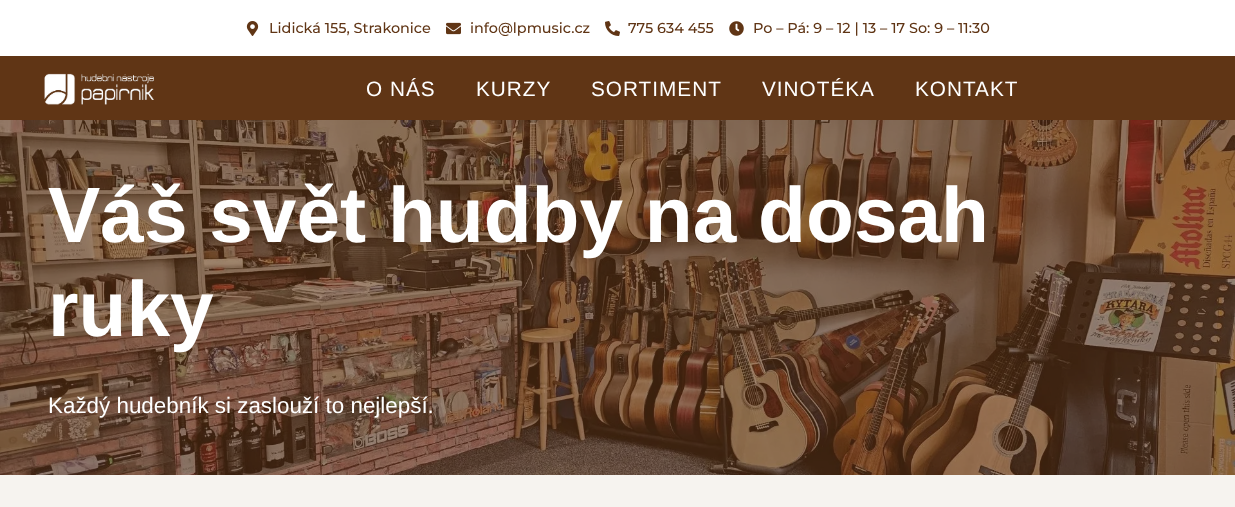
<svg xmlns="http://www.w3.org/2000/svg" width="1235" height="507">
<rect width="100%" height="100%" fill="#fff"/>
<image x="246" y="21" width="13" height="15" href="media/1.png"/>
<text x="269" y="33" style="font-family:Montserrat;font-size:14.4px;font-weight:500;fill:#603515">Lidická 155, Strakonice</text>
<image x="446" y="22" width="15" height="13" href="media/2.png"/>
<text x="470" y="33" style="font-family:Montserrat;font-size:14.4px;font-weight:500;fill:#603515">info@lpmusic.cz</text>
<image x="605" y="21" width="15" height="15" href="media/3.png"/>
<text x="628" y="33" style="font-family:Montserrat;font-size:14.4px;font-weight:500;fill:#603515">775 634 455</text>
<image x="729" y="21" width="15" height="15" href="media/4.png"/>
<text x="753" y="33" style="font-family:Montserrat;font-size:14.4px;font-weight:500;fill:#603515">Po – Pá: 9 – 12 | 13 – 17 So: 9 – 11:30</text>
<rect y="56" width="1235" height="64" fill="#603515"/>
<image x="44" y="73" width="110" height="32" href="media/5.png"/>
<text x="366" y="96" style="font-family:Liberation Sans;font-size:20.75px;letter-spacing:1px;fill:#fff">O NÁS</text>
<text x="476" y="96" style="font-family:Liberation Sans;font-size:20.75px;letter-spacing:1px;fill:#fff">KURZY</text>
<text x="591" y="96" style="font-family:Liberation Sans;font-size:20.75px;letter-spacing:1px;fill:#fff">SORTIMENT</text>
<text x="762" y="96" style="font-family:Liberation Sans;font-size:20.75px;letter-spacing:1px;fill:#fff">VINOTÉKA</text>
<text x="915" y="96" style="font-family:Liberation Sans;font-size:20.75px;letter-spacing:1px;fill:#fff">KONTAKT</text>
<image x="0" y="120" width="1235" height="355" href="media/6.png"/>
<text x="48" y="242" style="font-family:Liberation Sans;font-size:78.4px;font-weight:bold;fill:#fff">Váš svět hudby na dosah</text>
<text x="48" y="336" style="font-family:Liberation Sans;font-size:78.4px;font-weight:bold;fill:#fff">ruky</text>
<text x="48" y="413" style="font-family:Liberation Sans;font-size:22.4px;fill:#fff">Každý hudebník si zaslouží to nejlepší.</text>
<rect y="475" width="1235" height="32" fill="#f6f3ef"/>
</svg>
